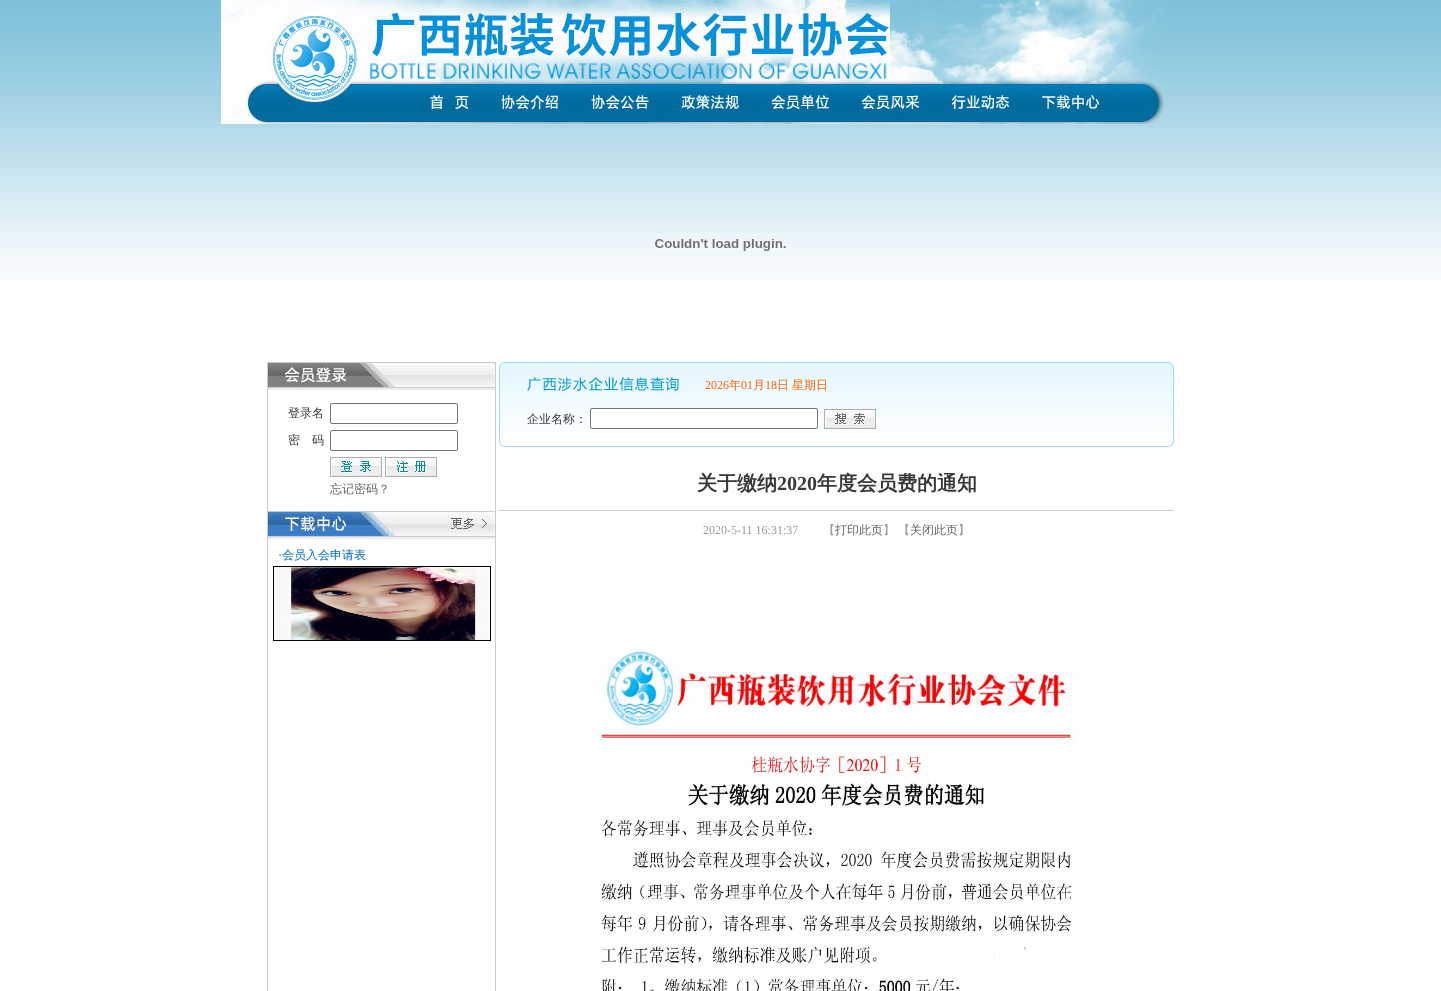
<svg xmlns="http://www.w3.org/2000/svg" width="1441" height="991">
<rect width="100%" height="100%" fill="#fff"/>
<image x="0" y="0" width="1441" height="280" href="media/1.png"/>
<image x="221" y="0" width="338" height="83" href="media/2.png"/>
<image x="559" y="0" width="331" height="83" href="media/3.png"/>
<image x="890" y="0" width="276" height="83" href="media/4.png"/>
<image x="221" y="83" width="944" height="41" href="media/5.png"/>
<image x="649" y="234" width="143" height="17" href="media/6.png"/>
<rect x="267.5" y="362.5" width="228" height="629" fill="none" stroke="#ccc"/>
<image x="268" y="363" width="227" height="27" href="media/7.png"/>
<text x="288" y="417" style="font-family:WenQuanYi Zen Hei;font-size:12px;font-weight:500;fill:#383838">登录名</text>
<rect x="330.5" y="403.5" width="127" height="20" rx="1.5" fill="none" stroke="#767676"/>
<text x="288" y="444" style="font-family:WenQuanYi Zen Hei;font-size:12px;font-weight:500;fill:#383838">密　码</text>
<rect x="330.5" y="430.5" width="127" height="20" rx="1.5" fill="none" stroke="#767676"/>
<image x="330" y="457" width="52" height="20" href="media/8.png"/>
<image x="385" y="457" width="52" height="20" href="media/9.png"/>
<text x="330" y="493" style="font-family:WenQuanYi Zen Hei;font-size:12px;font-weight:500;fill:#666">忘记密码？</text>
<image x="268" y="511" width="227" height="28" href="media/10.png"/>
<text x="278" y="559" style="font-family:Liberation Serif;font-size:12px;fill:#006fc5">·</text>
<text x="282" y="559" style="font-family:WenQuanYi Zen Hei;font-size:12px;font-weight:500;fill:#006fc5">会员入会申请表</text>
<rect x="273.5" y="566.5" width="217" height="74" fill="none" stroke="#000"/>
<image x="274" y="567" width="216" height="73" href="media/11.png"/>
<image x="499" y="362" width="8" height="85" href="media/12.png"/>
<image x="507" y="362" width="660" height="85" href="media/13.png"/>
<image x="507" y="363" width="174" height="31" href="media/14.png"/>
<text x="705" y="389" style="font-family:Liberation Serif;font-size:12px;fill:#f60">2026</text>
<text x="729" y="389" style="font-family:WenQuanYi Zen Hei;font-size:12px;font-weight:500;fill:#f60">年</text>
<text x="741" y="389" style="font-family:Liberation Serif;font-size:12px;fill:#f60">01</text>
<text x="753" y="389" style="font-family:WenQuanYi Zen Hei;font-size:12px;font-weight:500;fill:#f60">月</text>
<text x="765" y="389" style="font-family:Liberation Serif;font-size:12px;fill:#f60">18</text>
<text x="777" y="389" style="font-family:WenQuanYi Zen Hei;font-size:12px;font-weight:500;fill:#f60">日</text>
<text x="792" y="389" style="font-family:WenQuanYi Zen Hei;font-size:12px;font-weight:500;fill:#f60">星期日</text>
<text x="527" y="423" style="font-family:WenQuanYi Zen Hei;font-size:12px;font-weight:500;fill:#383838">企业名称：</text>
<rect x="590.5" y="408.5" width="227" height="20" rx="1.5" fill="#fff" stroke="#767676"/>
<image x="824" y="409" width="52" height="20" href="media/15.png"/>
<image x="1167" y="362" width="7" height="85" href="media/16.png"/>
<rect x="499" y="510" width="675" height="1" fill="#cfcfcf"/>
<text x="697" y="490" style="font-family:WenQuanYi Zen Hei;font-size:20px;font-weight:bold;fill:#383838">关于缴纳</text>
<text x="777" y="490" style="font-family:Liberation Serif;font-size:20px;font-weight:bold;fill:#383838">2020</text>
<text x="817" y="490" style="font-family:WenQuanYi Zen Hei;font-size:20px;font-weight:bold;fill:#383838">年度会员费的通知</text>
<text x="703" y="534" style="font-family:Liberation Serif;font-size:12px;fill:#999">2020-5-11 16:31:37</text>
<text x="823" y="534" style="font-family:WenQuanYi Zen Hei;font-size:12px;font-weight:500;fill:#999">【</text>
<text x="835" y="534" style="font-family:WenQuanYi Zen Hei;font-size:12px;font-weight:500;fill:#666">打印此页</text>
<text x="883" y="534" style="font-family:WenQuanYi Zen Hei;font-size:12px;font-weight:500;fill:#999">】</text>
<text x="898" y="534" style="font-family:WenQuanYi Zen Hei;font-size:12px;font-weight:500;fill:#999">【</text>
<text x="910" y="534" style="font-family:WenQuanYi Zen Hei;font-size:12px;font-weight:500;fill:#666">关闭此页</text>
<text x="958" y="534" style="font-family:WenQuanYi Zen Hei;font-size:12px;font-weight:500;fill:#999">】</text>
<image x="599" y="647" width="475" height="344" href="media/17.png"/>
</svg>
